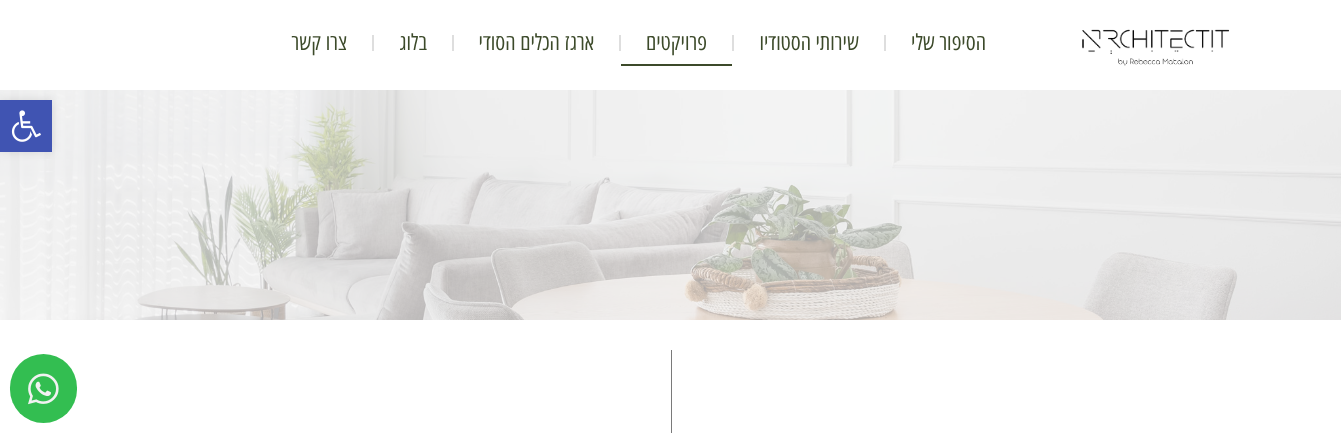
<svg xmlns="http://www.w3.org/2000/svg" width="1341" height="433">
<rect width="100%" height="100%" fill="#fff"/>
<image x="1082" y="29" width="148" height="37" href="media/1.png"/>
<text x="986" y="50" style="font-family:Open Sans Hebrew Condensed;font-size:22px;direction:rtl;fill:#3c4a2a">הסיפור שלי</text>
<rect x="884" y="35" width="2" height="16" fill="#dedede"/>
<text x="859" y="50" style="font-family:Open Sans Hebrew Condensed;font-size:22px;direction:rtl;fill:#3c4a2a">שירותי הסטודיו</text>
<rect x="732" y="35" width="2" height="16" fill="#dedede"/>
<text x="707" y="50" style="font-family:Open Sans Hebrew Condensed;font-size:22px;direction:rtl;fill:#3c4a2a">פרויקטים</text>
<rect x="621" y="64" width="111" height="2" fill="#3c4a2a"/>
<rect x="619" y="35" width="2" height="16" fill="#dedede"/>
<text x="594" y="50" style="font-family:Open Sans Hebrew Condensed;font-size:22px;direction:rtl;fill:#3c4a2a">ארגז הכלים הסודי</text>
<rect x="452" y="35" width="2" height="16" fill="#dedede"/>
<text x="427" y="50" style="font-family:Open Sans Hebrew Condensed;font-size:22px;direction:rtl;fill:#3c4a2a">בלוג</text>
<rect x="372" y="35" width="2" height="16" fill="#dedede"/>
<text x="347" y="50" style="font-family:Open Sans Hebrew Condensed;font-size:22px;direction:rtl;fill:#3c4a2a">צרו קשר</text>
<image x="0" y="90" width="1341" height="230" href="media/3.png"/>
<rect y="100" width="52" height="52" fill="#0000001a" filter="blur(5px)"/>
<rect y="100" width="52" height="52" fill="#4054b2"/>
<image x="11" y="110" width="30" height="32" href="media/2.png"/>
<rect x="671" y="350" width="1" height="83" fill="#7a7a7a"/>
<rect x="10" y="354" width="67" height="69" rx="33.5" fill="#33be51"/>
<image x="28" y="373" width="31" height="32" href="media/4.png"/>
</svg>
